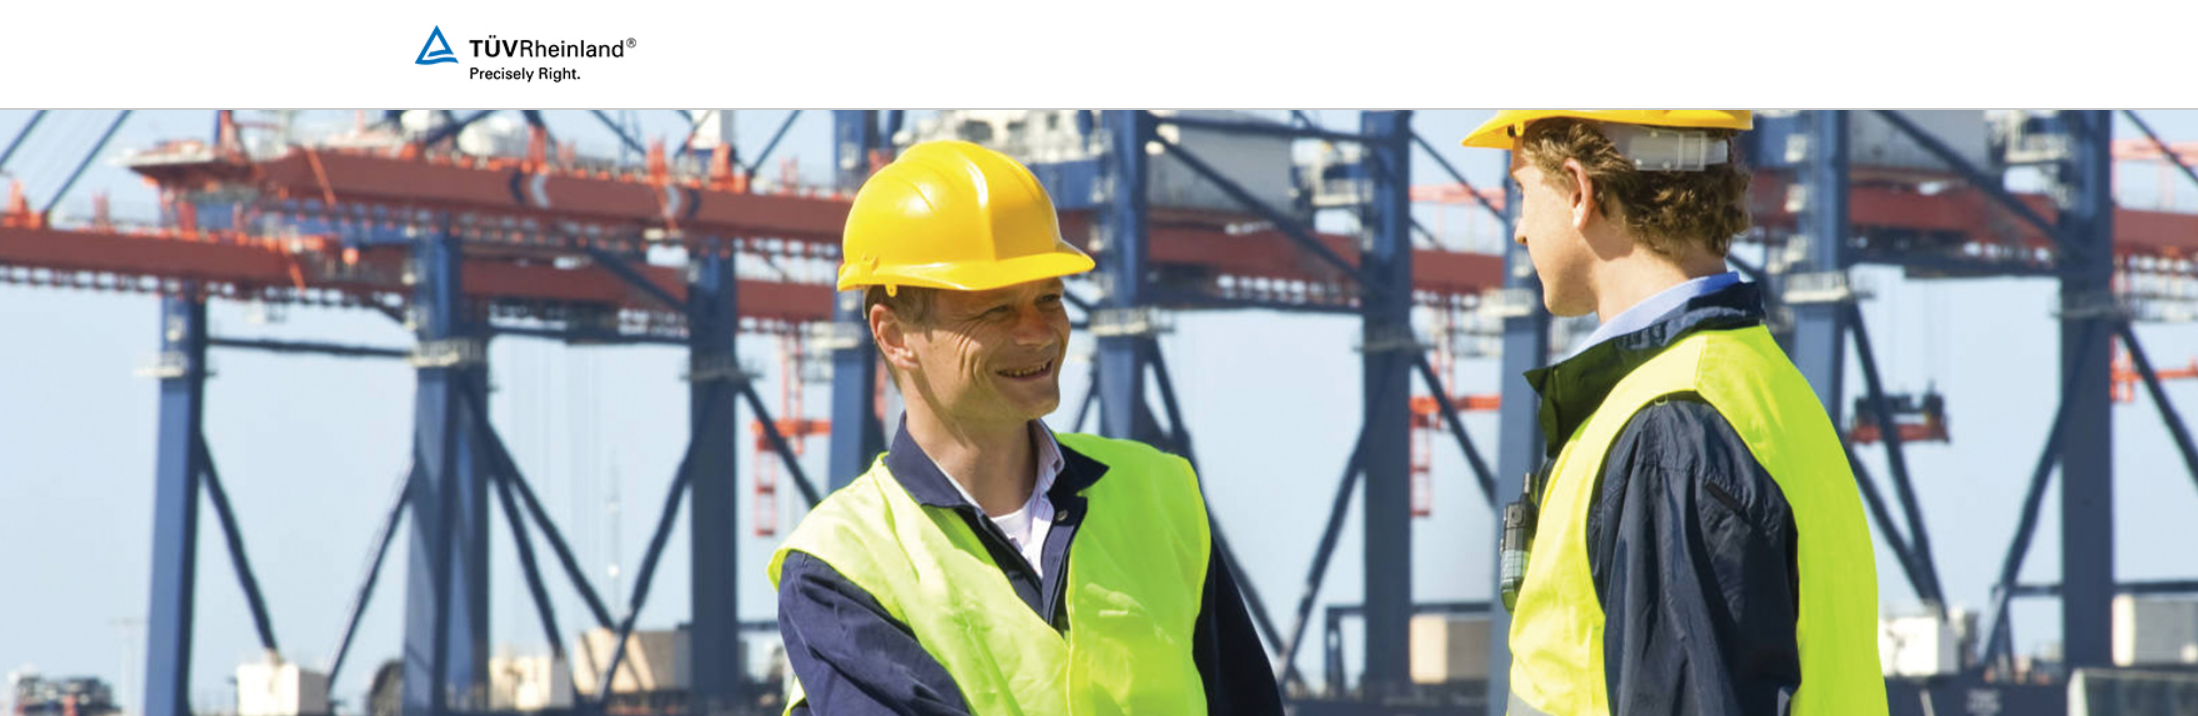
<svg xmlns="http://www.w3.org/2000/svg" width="2198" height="716">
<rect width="100%" height="100%" fill="#fff"/>
<rect y="108" width="2198" height="2" fill="#ccc"/>
<image x="414" y="25" width="223" height="58" href="media/1.png"/>
<image x="0" y="110" width="2198" height="606" href="media/2.png"/>
</svg>
